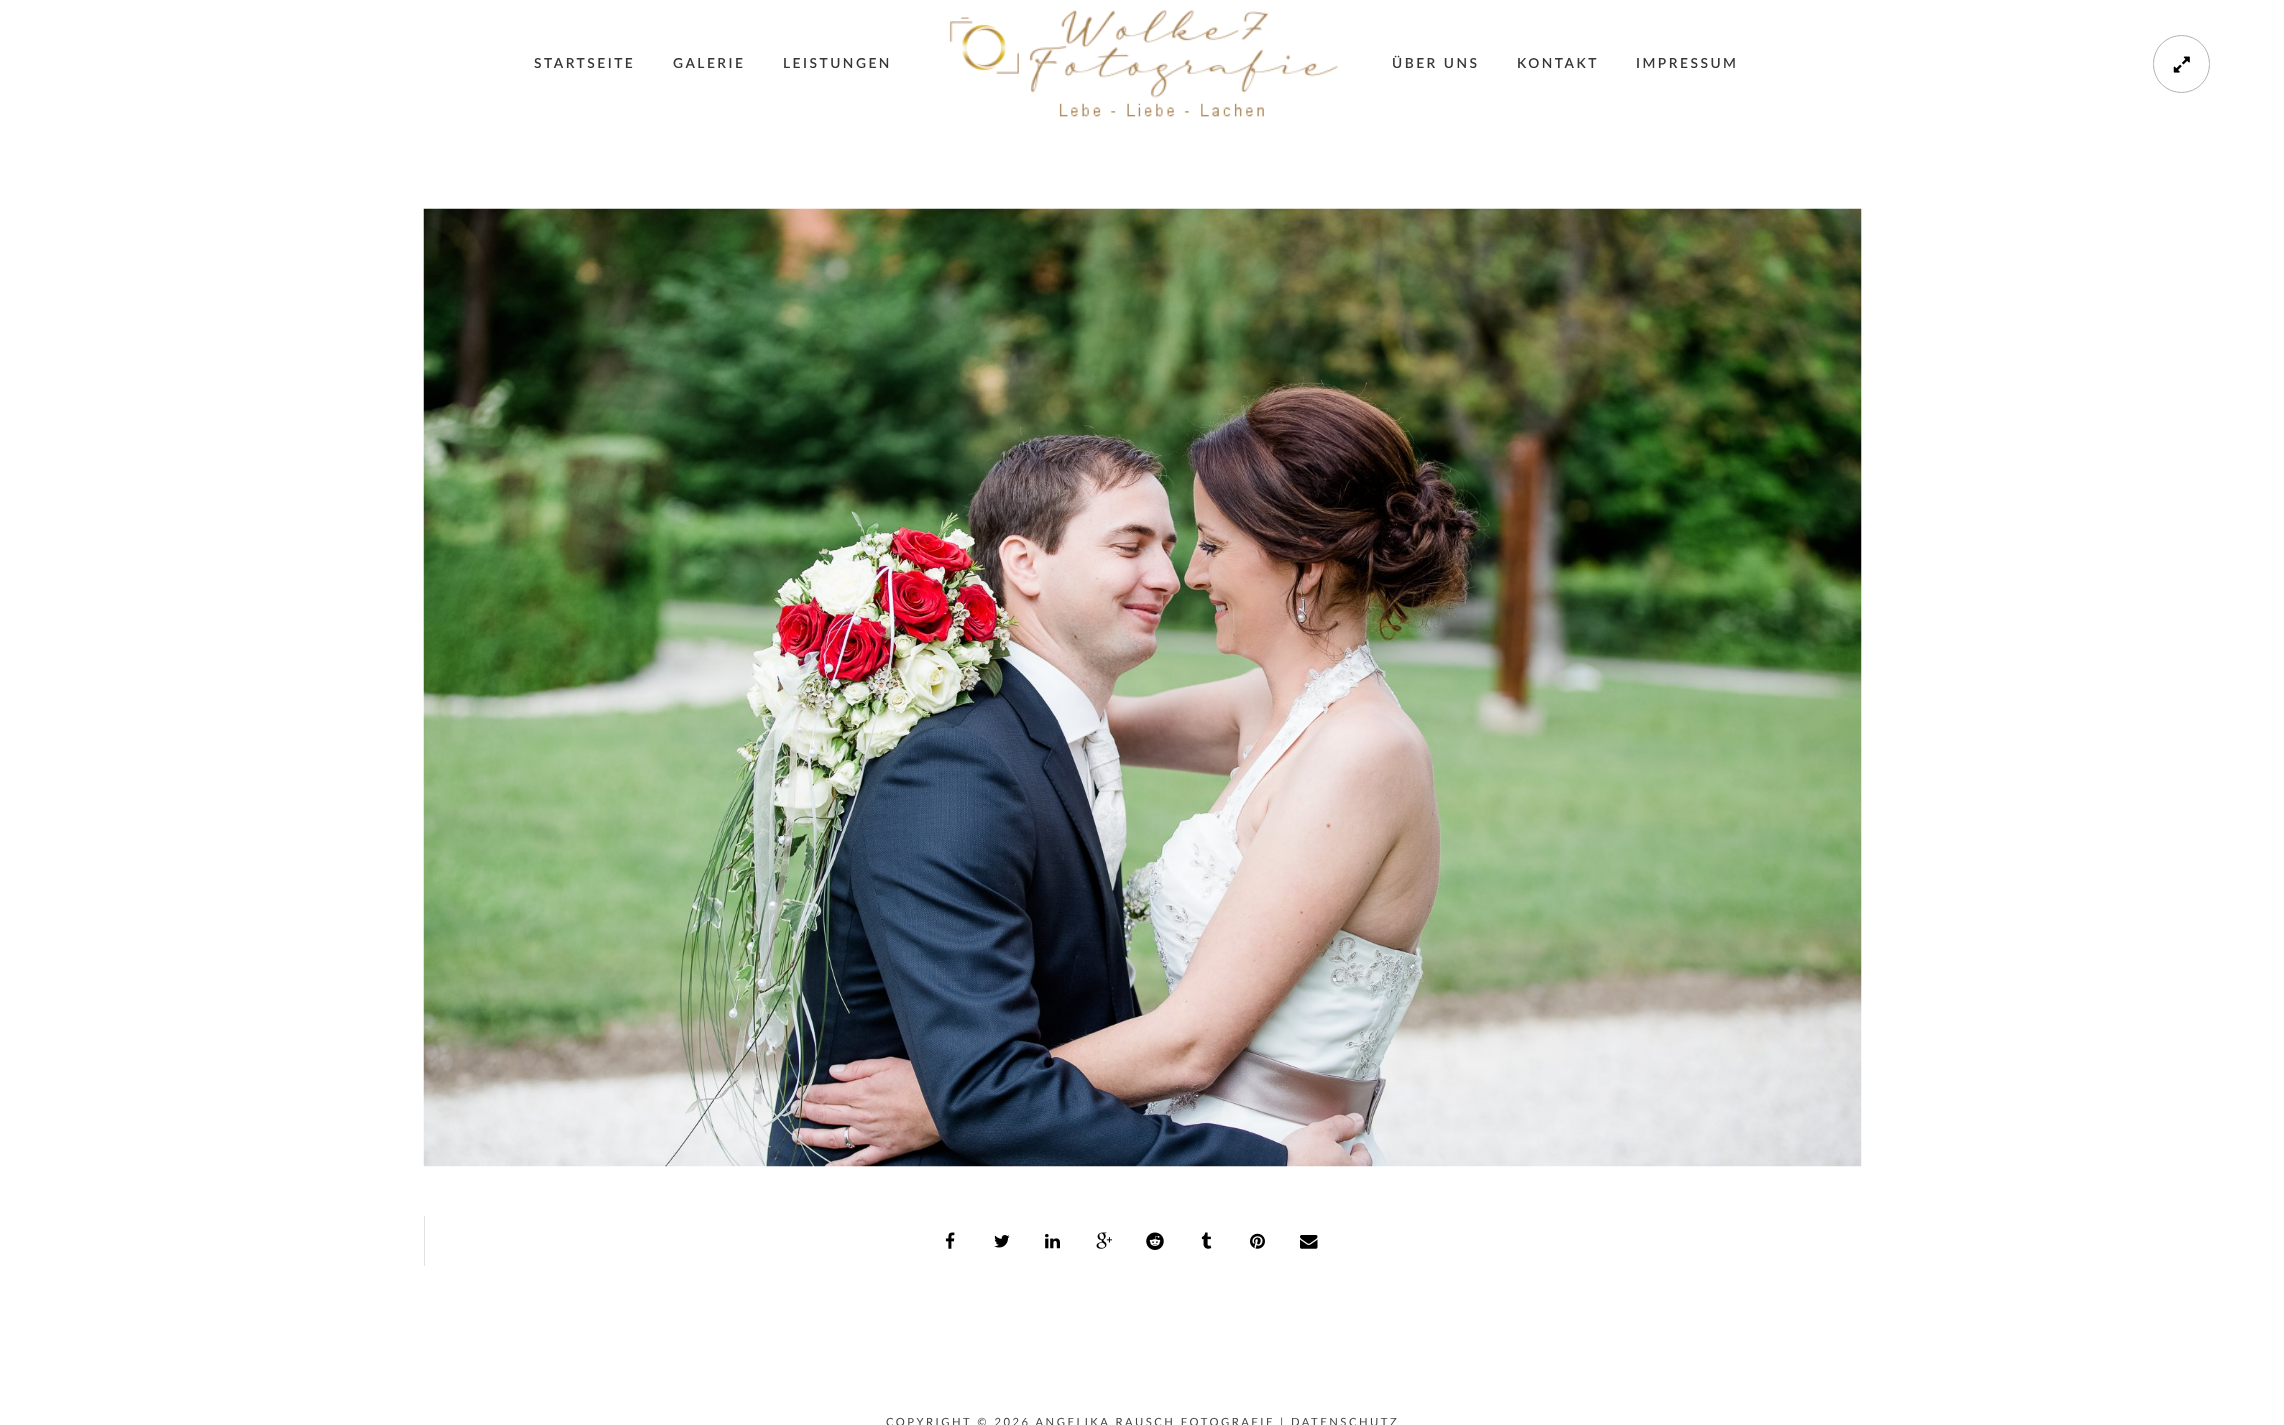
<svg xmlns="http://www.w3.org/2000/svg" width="2284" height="1425">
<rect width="100%" height="100%" fill="#fff"/>
<text x="534" y="68" style="font-family:Lato;font-size:13.75px;font-weight:600;letter-spacing:2.5px;fill:#363636">STARTSEITE</text>
<text x="673" y="68" style="font-family:Lato;font-size:13.75px;font-weight:600;letter-spacing:2.5px;fill:#363636">GALERIE</text>
<text x="783" y="68" style="font-family:Lato;font-size:13.75px;font-weight:600;letter-spacing:2.5px;fill:#363636">LEISTUNGEN</text>
<image x="949" y="10" width="389" height="107" href="media/1.png"/>
<text x="1392" y="68" style="font-family:Lato;font-size:13.75px;font-weight:600;letter-spacing:2.5px;fill:#363636">ÜBER UNS</text>
<text x="1517" y="68" style="font-family:Lato;font-size:13.75px;font-weight:600;letter-spacing:2.5px;fill:#363636">KONTAKT</text>
<text x="1636" y="68" style="font-family:Lato;font-size:13.75px;font-weight:600;letter-spacing:2.5px;fill:#363636">IMPRESSUM</text>
<rect x="2153.5" y="35.5" width="56" height="57" rx="28" fill="none" stroke="#b3b3b3"/>
<image x="2173" y="56" width="17" height="17" href="media/2.png"/>
<image x="423" y="208" width="1439" height="959" href="media/3.png"/>
<rect x="424" y="1216" width="1" height="50" fill="#e2e2e2"/>
<image x="945" y="1232" width="10" height="17" href="media/4.png"/>
<image x="994" y="1235" width="16" height="13" href="media/5.png"/>
<image x="1045" y="1234" width="15" height="15" href="media/6.png"/>
<image x="1096" y="1232" width="16" height="17" href="media/7.png"/>
<image x="1146" y="1232" width="18" height="18" href="media/8.png"/>
<image x="1201" y="1232" width="11" height="17" href="media/9.png"/>
<image x="1250" y="1233" width="15" height="16" href="media/10.png"/>
<image x="1300" y="1235" width="18" height="14" href="media/11.png"/>
<text x="886" y="1426" style="font-family:Lato;font-size:11.25px;letter-spacing:2.5px;fill:#444">COPYRIGHT © 2026 ANGELIKA RAUSCH FOTOGRAFIE | DATENSCHUTZ</text>
</svg>
